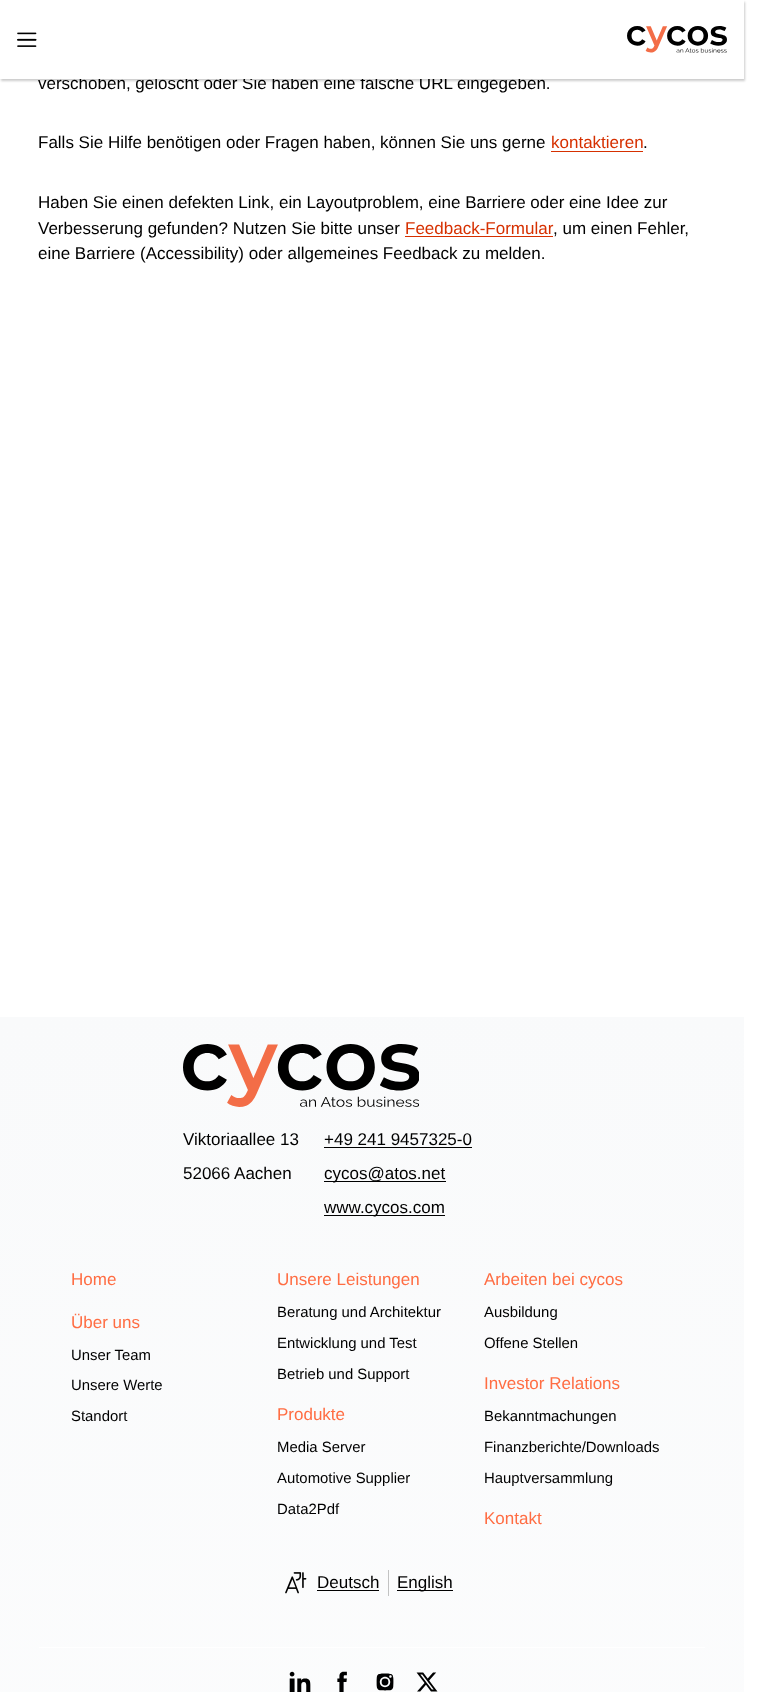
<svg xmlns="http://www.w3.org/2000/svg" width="759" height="1692">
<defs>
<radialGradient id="g1" gradientUnits="userSpaceOnUse" cx="372" cy="2897" r="1916"><stop offset="0" stop-color="#fff"/><stop offset="1" stop-color="#f9fafb"/></radialGradient>
</defs>
<rect width="100%" height="100%" fill="#fff"/>
<rect x="1" y="2" width="744" height="79" fill="#00000033" filter="blur(1px)"/>
<text x="38" y="89" style="font-family:Liberation Sans;font-size:17px;fill:#000">verschoben, gelöscht oder Sie haben eine falsche URL eingegeben.</text>
<rect width="744" height="79" fill="#fff"/>
<image x="627" y="26" width="100" height="27" href="media/1.png"/>
<image x="17" y="32" width="20" height="15" href="media/2.png"/>
<text x="38" y="148" style="font-family:Liberation Sans;font-size:17px;fill:#000">Falls Sie Hilfe benötigen oder Fragen haben, können Sie uns gerne</text>
<text x="551" y="148" style="font-family:Liberation Sans;font-size:17px;fill:#d63000">kontaktieren</text>
<rect x="551" y="151" width="92" height="1" fill="#d63000"/>
<text x="643" y="148" style="font-family:Liberation Sans;font-size:17px;fill:#000">.</text>
<text x="38" y="208" style="font-family:Liberation Sans;font-size:17px;fill:#000">Haben Sie einen defekten Link, ein Layoutproblem, eine Barriere oder eine Idee zur</text>
<text x="38" y="234" style="font-family:Liberation Sans;font-size:17px;fill:#000">Verbesserung gefunden? Nutzen Sie bitte unser</text>
<text x="405" y="234" style="font-family:Liberation Sans;font-size:17px;fill:#d63000">Feedback-Formular</text>
<rect x="405" y="236" width="148" height="1" fill="#d63000"/>
<text x="553" y="234" style="font-family:Liberation Sans;font-size:17px;fill:#000">, um einen Fehler,</text>
<text x="38" y="259" style="font-family:Liberation Sans;font-size:17px;fill:#000">eine Barriere (Accessibility) oder allgemeines Feedback zu melden.</text>
<rect y="1017" width="744" height="675" fill="url(#g1)"/>
<image x="183" y="1044" width="236" height="63" href="media/3.png"/>
<text x="183" y="1145" style="font-family:Liberation Sans;font-size:17px;fill:#000">Viktoriaallee 13</text>
<text x="183" y="1179" style="font-family:Liberation Sans;font-size:17px;fill:#000">52066 Aachen</text>
<text x="324" y="1145" style="font-family:Liberation Sans;font-size:17px;fill:#000">+49 241 9457325-0</text>
<rect x="324" y="1147" width="148" height="1" fill="#000"/>
<rect x="324" y="1181" width="122" height="1" fill="#000"/>
<text x="324" y="1179" style="font-family:Liberation Sans;font-size:17px;fill:#000">cycos@atos.net</text>
<rect x="324" y="1215" width="121" height="1" fill="#000"/>
<text x="324" y="1213" style="font-family:Liberation Sans;font-size:17px;fill:#000">www.cycos.com</text>
<text x="71" y="1285" style="font-family:Liberation Sans;font-size:17px;fill:#ff6d43">Home</text>
<text x="277" y="1285" style="font-family:Liberation Sans;font-size:17px;fill:#ff6d43">Unsere Leistungen</text>
<text x="277" y="1317" style="font-family:Liberation Sans;font-size:14.9px;fill:#000">Beratung und Architektur</text>
<text x="277" y="1348" style="font-family:Liberation Sans;font-size:14.9px;fill:#000">Entwicklung und Test</text>
<text x="277" y="1379" style="font-family:Liberation Sans;font-size:14.9px;fill:#000">Betrieb und Support</text>
<text x="484" y="1285" style="font-family:Liberation Sans;font-size:17px;fill:#ff6d43">Arbeiten bei cycos</text>
<text x="484" y="1317" style="font-family:Liberation Sans;font-size:14.9px;fill:#000">Ausbildung</text>
<text x="484" y="1348" style="font-family:Liberation Sans;font-size:14.9px;fill:#000">Offene Stellen</text>
<text x="71" y="1328" style="font-family:Liberation Sans;font-size:17px;fill:#ff6d43">Über uns</text>
<text x="71" y="1360" style="font-family:Liberation Sans;font-size:14.9px;fill:#000">Unser Team</text>
<text x="71" y="1390" style="font-family:Liberation Sans;font-size:14.9px;fill:#000">Unsere Werte</text>
<text x="71" y="1421" style="font-family:Liberation Sans;font-size:14.9px;fill:#000">Standort</text>
<text x="277" y="1420" style="font-family:Liberation Sans;font-size:17px;fill:#ff6d43">Produkte</text>
<text x="277" y="1452" style="font-family:Liberation Sans;font-size:14.9px;fill:#000">Media Server</text>
<text x="277" y="1483" style="font-family:Liberation Sans;font-size:14.9px;fill:#000">Automotive Supplier</text>
<text x="277" y="1514" style="font-family:Liberation Sans;font-size:14.9px;fill:#000">Data2Pdf</text>
<text x="484" y="1389" style="font-family:Liberation Sans;font-size:17px;fill:#ff6d43">Investor Relations</text>
<text x="484" y="1421" style="font-family:Liberation Sans;font-size:14.9px;fill:#000">Bekanntmachungen</text>
<text x="484" y="1452" style="font-family:Liberation Sans;font-size:14.9px;fill:#000">Finanzberichte/Downloads</text>
<text x="484" y="1483" style="font-family:Liberation Sans;font-size:14.9px;fill:#000">Hauptversammlung</text>
<text x="484" y="1524" style="font-family:Liberation Sans;font-size:17px;fill:#ff6d43">Kontakt</text>
<image x="285" y="1572" width="22" height="22" href="media/4.png"/>
<rect x="388" y="1570" width="1" height="26" fill="#c2c2c2"/>
<text x="317" y="1588" style="font-family:Liberation Sans;font-size:17px;fill:#000">Deutsch</text>
<rect x="317" y="1590" width="62" height="1" fill="#000"/>
<rect x="397" y="1590" width="56" height="1" fill="#000"/>
<text x="397" y="1588" style="font-family:Liberation Sans;font-size:17px;fill:#000">English</text>
<rect x="39" y="1647" width="666" height="1" fill="#fff"/>
<image x="289" y="1671" width="22" height="21" href="media/5.png"/>
<image x="337" y="1671" width="10" height="21" href="media/6.png"/>
<image x="376" y="1673" width="18" height="18" href="media/7.png"/>
<image x="416" y="1672" width="22" height="20" href="media/8.png"/>
</svg>
